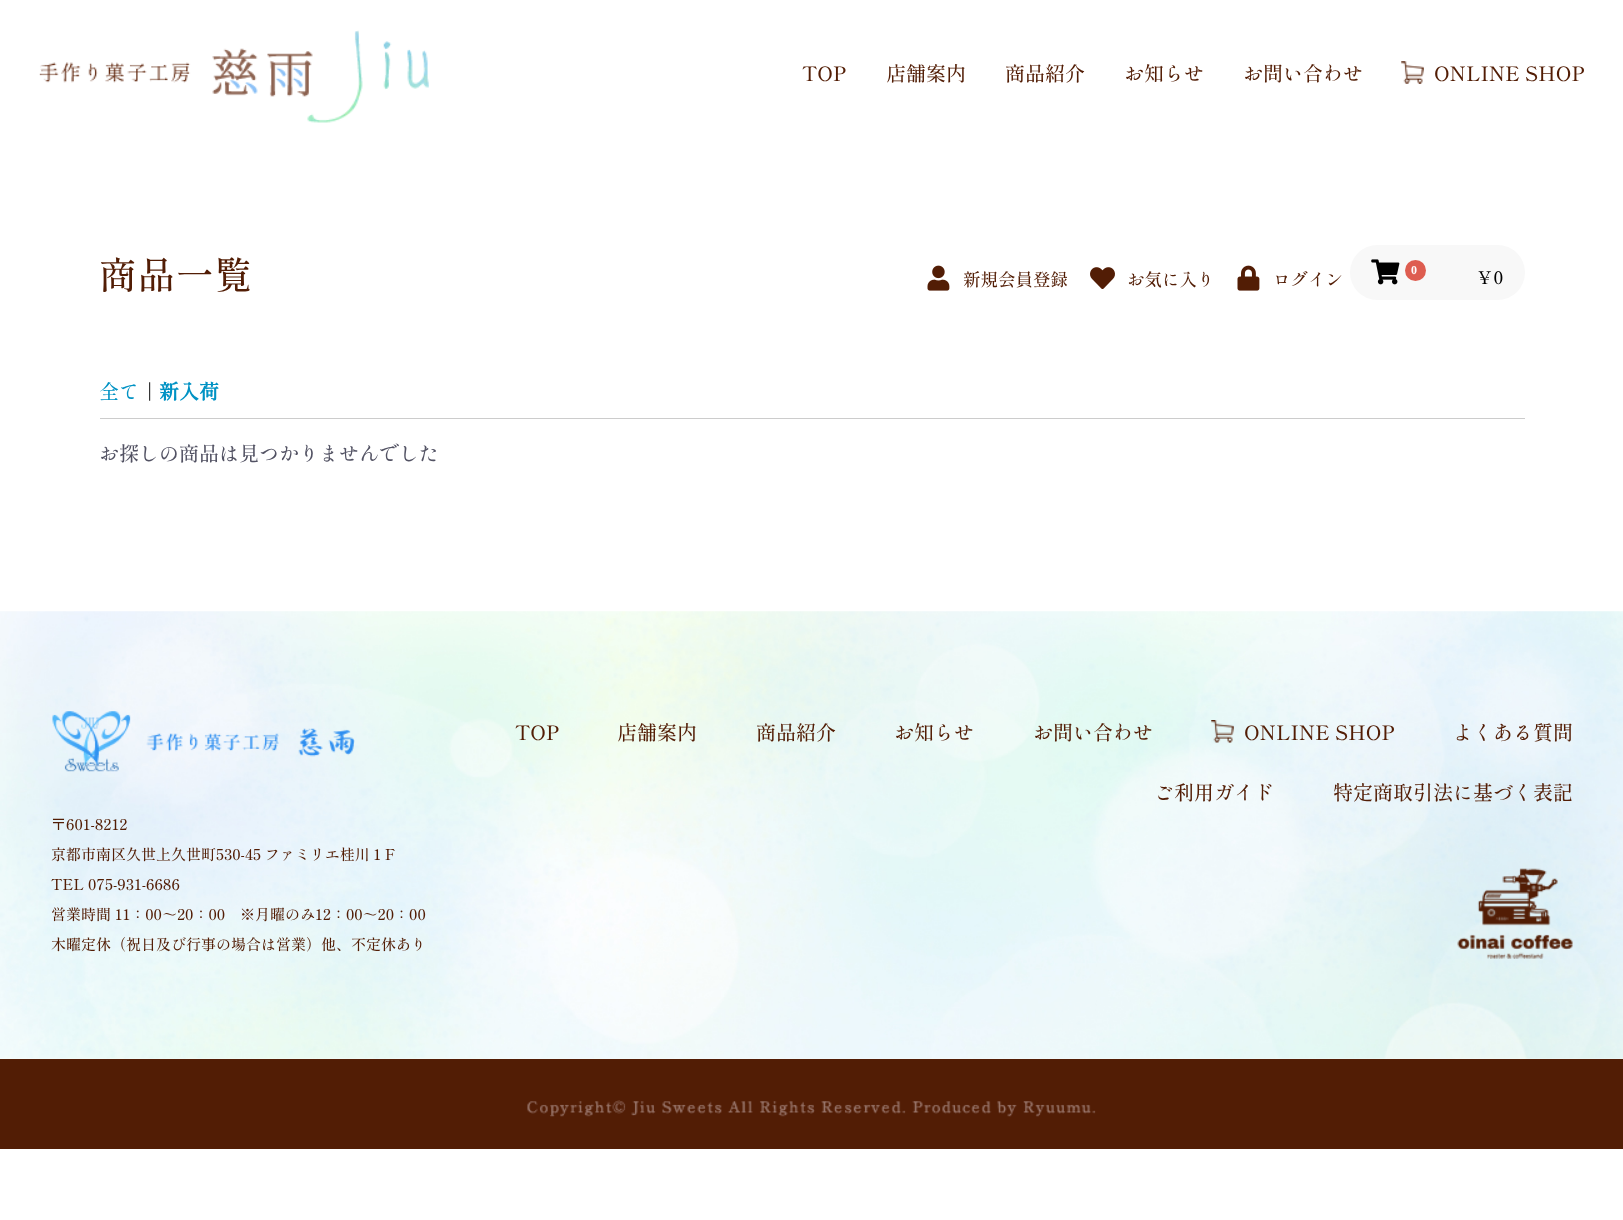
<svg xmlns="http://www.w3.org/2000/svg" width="1623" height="1220">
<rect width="100%" height="100%" fill="#fff"/>
<image x="39" y="30" width="390" height="93" href="media/1.png"/>
<text x="802" y="81" style="font-family:Shippori Mincho;font-size:20px;font-weight:500;fill:#521d05">TOP</text>
<text x="886" y="81" style="font-family:Shippori Mincho;font-size:20px;font-weight:500;fill:#521d05">店舗案内</text>
<text x="1005" y="81" style="font-family:Shippori Mincho;font-size:20px;font-weight:500;fill:#521d05">商品紹介</text>
<text x="1124" y="81" style="font-family:Shippori Mincho;font-size:20px;font-weight:500;fill:#521d05">お知らせ</text>
<text x="1243" y="81" style="font-family:Shippori Mincho;font-size:20px;font-weight:500;fill:#521d05">お問い合わせ</text>
<image x="1401" y="61" width="23" height="23" href="media/2.png"/>
<text x="1434" y="81" style="font-family:Shippori Mincho;font-size:20px;font-weight:500;fill:#521d05">ONLINE SHOP</text>
<text x="99" y="289" style="font-family:Shippori Mincho;font-size:37.5px;font-weight:500;letter-spacing:1px;fill:#521d05">商品一覧</text>
<image x="927" y="265" width="23" height="26" href="media/3.png"/>
<text x="963" y="286" style="font-family:Shippori Mincho;font-size:17.5px;font-weight:500;fill:#521d05">新規会員登録</text>
<image x="1090" y="267" width="25" height="22" href="media/4.png"/>
<text x="1127" y="286" style="font-family:Shippori Mincho;font-size:17.5px;font-weight:500;fill:#521d05">お気に入り</text>
<image x="1237" y="265" width="23" height="26" href="media/5.png"/>
<text x="1273" y="286" style="font-family:Shippori Mincho;font-size:17.5px;font-weight:500;fill:#521d05">ログイン</text>
<rect x="1350" y="245" width="175" height="55" rx="27.5" fill="#f8f8f8"/>
<image x="1371" y="259" width="29" height="26" href="media/6.png"/>
<circle cx="1415.5" cy="270.5" r="10.5" fill="#de5d50"/>
<text x="1411" y="274" style="font-family:Liberation Serif;font-size:12px;font-weight:bold;fill:#fff">0</text>
<text x="1476" y="284" style="font-family:Shippori Mincho;font-size:17.5px;font-weight:500;fill:#000">￥0</text>
<text x="99" y="399" style="font-family:Shippori Mincho;font-size:20px;font-weight:500;fill:#0092c4">全て</text>
<text x="147" y="399" style="font-family:Shippori Mincho;font-size:20px;font-weight:500;fill:#000">|</text>
<text x="159" y="399" style="font-family:Shippori Mincho;font-size:20px;font-weight:bold;fill:#0092c4">新入荷</text>
<rect x="100" y="418" width="1425" height="1" fill="#ccc"/>
<text x="99" y="461" style="font-family:Shippori Mincho;font-size:20px;font-weight:500;fill:#525263">お探しの商品は見つかりませんでした</text>
<image x="0" y="611" width="1623" height="448" href="media/7.png"/>
<text x="515" y="740" style="font-family:Shippori Mincho;font-size:20px;font-weight:500;fill:#521d05">TOP</text>
<text x="617" y="740" style="font-family:Shippori Mincho;font-size:20px;font-weight:500;fill:#521d05">店舗案内</text>
<text x="756" y="740" style="font-family:Shippori Mincho;font-size:20px;font-weight:500;fill:#521d05">商品紹介</text>
<text x="894" y="740" style="font-family:Shippori Mincho;font-size:20px;font-weight:500;fill:#521d05">お知らせ</text>
<text x="1033" y="740" style="font-family:Shippori Mincho;font-size:20px;font-weight:500;fill:#521d05">お問い合わせ</text>
<image x="1211" y="720" width="23" height="23" href="media/8.png"/>
<text x="1244" y="740" style="font-family:Shippori Mincho;font-size:20px;font-weight:500;fill:#521d05">ONLINE SHOP</text>
<text x="1453" y="740" style="font-family:Shippori Mincho;font-size:20px;font-weight:500;fill:#521d05">よくある質問</text>
<text x="1154" y="800" style="font-family:Shippori Mincho;font-size:20px;font-weight:500;fill:#521d05">ご利用ガイド</text>
<text x="1333" y="800" style="font-family:Shippori Mincho;font-size:20px;font-weight:500;fill:#521d05">特定商取引法に基づく表記</text>
<image x="1457" y="868" width="116" height="91" href="media/9.png"/>
<image x="52" y="711" width="303" height="61" href="media/10.png"/>
<text x="51" y="830" style="font-family:Shippori Mincho;font-size:15px;font-weight:500;fill:#521d05">〒601-8212</text>
<text x="51" y="860" style="font-family:Shippori Mincho;font-size:15px;font-weight:500;fill:#521d05">京都市南区久世上久世町530-45 ファミリエ桂川１F</text>
<text x="51" y="890" style="font-family:Shippori Mincho;font-size:15px;font-weight:500;fill:#521d05">TEL 075-931-6686</text>
<text x="51" y="920" style="font-family:Shippori Mincho;font-size:15px;font-weight:500;fill:#521d05">営業時間 11：00～20：00　※月曜のみ12：00～20：00</text>
<text x="51" y="950" style="font-family:Shippori Mincho;font-size:15px;font-weight:500;fill:#521d05">木曜定休（祝日及び行事の場合は営業）他、不定休あり</text>
<rect y="1059" width="1623" height="90" fill="#521d05"/>
<image x="527" y="1100" width="379" height="17" href="media/11.png"/>
<image x="912" y="1101" width="184" height="16" href="media/12.png"/>
</svg>
